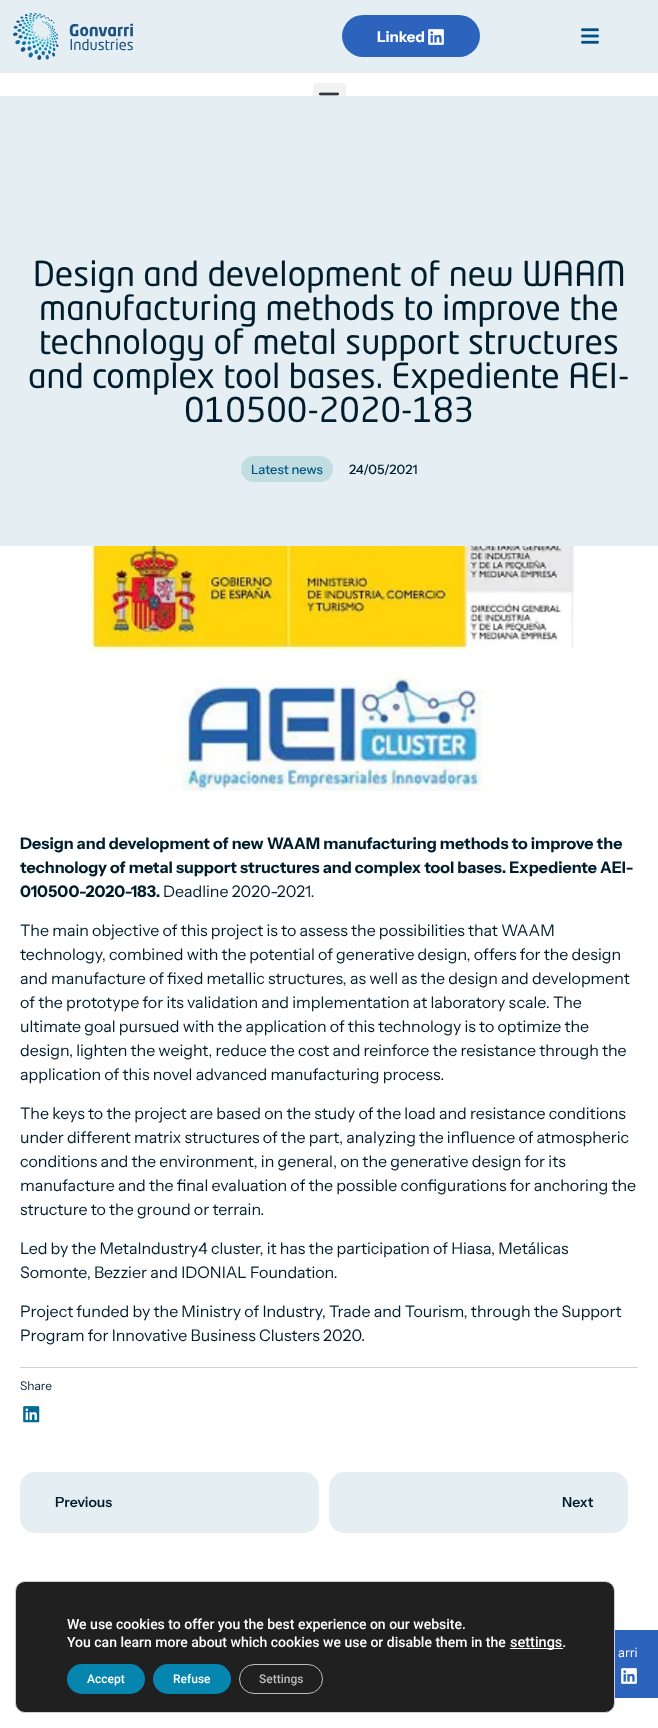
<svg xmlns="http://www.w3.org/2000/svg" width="658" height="1728">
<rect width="100%" height="100%" fill="#fff"/>
<rect width="658" height="73" fill="#e5eef2"/>
<image x="13" y="13" width="120" height="47" href="media/1.png"/>
<rect x="342" y="15" width="138" height="42" rx="21" fill="#2c64bd"/>
<text x="377" y="42" style="font-family:Instrument Sans;font-size:15px;font-weight:bold;fill:#fff">Linked</text>
<image x="428" y="29" width="16" height="16" href="media/2.png"/>
<image x="581" y="28" width="18" height="16" href="media/3.png"/>
<rect x="313" y="83" width="33" height="33" rx="3" fill="#f2f2f2"/>
<image x="319" y="92" width="20" height="4" href="media/4.png"/>
<rect y="96" width="658" height="450" fill="#e5eef2"/>
<text x="33" y="286" style="font-family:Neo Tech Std;font-size:34px;fill:#001d2d">Design and development of new WAAM</text>
<text x="39" y="320" style="font-family:Neo Tech Std;font-size:34px;fill:#001d2d">manufacturing methods to improve the</text>
<text x="39" y="354" style="font-family:Neo Tech Std;font-size:34px;fill:#001d2d">technology of metal support structures</text>
<text x="28" y="388" style="font-family:Neo Tech Std;font-size:34px;fill:#001d2d">and complex tool bases. Expediente AEI-</text>
<text x="184" y="422" style="font-family:Neo Tech Std;font-size:34px;fill:#001d2d">010500-2020-183</text>
<rect x="241" y="456" width="92" height="26" rx="13" fill="#c0dee1"/>
<text x="251" y="474" style="font-family:Instrument Sans;font-size:13px;font-weight:500;fill:#005380">Latest news</text>
<text x="349" y="474" style="font-family:Instrument Sans;font-size:13px;font-weight:500;fill:#001d2d">24/05/2021</text>
<image x="90" y="546" width="485" height="245" href="media/5.png"/>
<text x="20" y="849" style="font-family:Instrument Sans;font-size:16px;font-weight:bold;fill:#001d2d">Design and development of new WAAM manufacturing methods to improve the</text>
<text x="20" y="873" style="font-family:Instrument Sans;font-size:16px;font-weight:bold;fill:#001d2d">technology of metal support structures and complex tool bases. Expediente AEI-</text>
<text x="20" y="897" style="font-family:Instrument Sans;font-size:16px;font-weight:bold;fill:#001d2d">010500-2020-183.</text>
<text x="163" y="897" style="font-family:Instrument Sans;font-size:16px;fill:#001d2d">Deadline 2020-2021.</text>
<text x="20" y="936" style="font-family:Instrument Sans;font-size:16px;fill:#001d2d">The main objective of this project is to assess the possibilities that WAAM</text>
<text x="20" y="960" style="font-family:Instrument Sans;font-size:16px;fill:#001d2d">technology, combined with the potential of generative design, offers for the design</text>
<text x="20" y="984" style="font-family:Instrument Sans;font-size:16px;fill:#001d2d">and manufacture of fixed metallic structures, as well as the design and development</text>
<text x="20" y="1008" style="font-family:Instrument Sans;font-size:16px;fill:#001d2d">of the prototype for its validation and implementation at laboratory scale. The</text>
<text x="20" y="1032" style="font-family:Instrument Sans;font-size:16px;fill:#001d2d">ultimate goal pursued with the application of this technology is to optimize the</text>
<text x="20" y="1056" style="font-family:Instrument Sans;font-size:16px;fill:#001d2d">design, lighten the weight, reduce the cost and reinforce the resistance through the</text>
<text x="20" y="1080" style="font-family:Instrument Sans;font-size:16px;fill:#001d2d">application of this novel advanced manufacturing process.</text>
<text x="20" y="1119" style="font-family:Instrument Sans;font-size:16px;fill:#001d2d">The keys to the project are based on the study of the load and resistance conditions</text>
<text x="20" y="1143" style="font-family:Instrument Sans;font-size:16px;fill:#001d2d">under different matrix structures of the part, analyzing the influence of atmospheric</text>
<text x="20" y="1167" style="font-family:Instrument Sans;font-size:16px;fill:#001d2d">conditions and the environment, in general, on the generative design for its</text>
<text x="20" y="1191" style="font-family:Instrument Sans;font-size:16px;fill:#001d2d">manufacture and the final evaluation of the possible configurations for anchoring the</text>
<text x="20" y="1215" style="font-family:Instrument Sans;font-size:16px;fill:#001d2d">structure to the ground or terrain.</text>
<text x="20" y="1254" style="font-family:Instrument Sans;font-size:16px;fill:#001d2d">Led by the MetaIndustry4 cluster, it has the participation of Hiasa, Metálicas</text>
<text x="20" y="1278" style="font-family:Instrument Sans;font-size:16px;fill:#001d2d">Somonte, Bezzier and IDONIAL Foundation.</text>
<text x="20" y="1317" style="font-family:Instrument Sans;font-size:16px;fill:#001d2d">Project funded by the Ministry of Industry, Trade and Tourism, through the Support</text>
<text x="20" y="1341" style="font-family:Instrument Sans;font-size:16px;fill:#001d2d">Program for Innovative Business Clusters 2020.</text>
<rect x="20" y="1367" width="618" height="1" fill="#d1d1d1"/>
<text x="20" y="1390" style="font-family:Instrument Sans;font-size:12px;fill:#001d2d">Share</text>
<image x="23" y="1406" width="17" height="17" href="media/6.png"/>
<rect x="20" y="1472" width="299" height="61" rx="15" fill="#e5eef2"/>
<text x="55" y="1507" style="font-family:Instrument Sans;font-size:14px;font-weight:600;fill:#001d2d">Previous</text>
<rect x="329" y="1472" width="299" height="61" rx="15" fill="#e5eef2"/>
<text x="562" y="1507" style="font-family:Instrument Sans;font-size:14px;font-weight:600;fill:#001d2d">Next</text>
<rect x="15.5" y="1581.5" width="599" height="131" rx="9.5" fill="#202020" stroke="#d3ced2"/>
<text x="67" y="1629" style="font-family:Roboto;font-size:14px;font-weight:500;fill:#fff">We use cookies to offer you the best experience on our website.</text>
<text x="67" y="1647" style="font-family:Roboto;font-size:14px;font-weight:500;fill:#fff">You can learn more about which cookies we use or disable them in the</text>
<rect x="510" y="1648" width="53" height="1" fill="#fff"/>
<text x="510" y="1647" style="font-family:Roboto;font-size:14.5px;font-weight:500;fill:#fff">settings.</text>
<rect x="67" y="1664" width="78" height="30" rx="15" fill="#0685ae"/>
<text x="87" y="1683" style="font-family:Roboto;font-size:12px;font-weight:500;fill:#fff">Accept</text>
<rect x="153" y="1664" width="78" height="30" rx="15" fill="#0685ae"/>
<text x="173" y="1683" style="font-family:Roboto;font-size:12px;font-weight:500;fill:#fff">Refuse</text>
<rect x="239.5" y="1664.5" width="83" height="29" rx="14.5" fill="none" stroke="#bcbcbc"/>
<text x="259" y="1683" style="font-family:Roboto;font-size:12px;font-weight:500;fill:#bcbcbc">Settings</text>
<rect x="615" y="1630" width="43" height="68" fill="#2c64bd"/>
<text x="618" y="1657" style="font-family:Instrument Sans;font-size:13px;fill:#fff">arri</text>
<image x="621" y="1668" width="16" height="16" href="media/2.png"/>
</svg>
